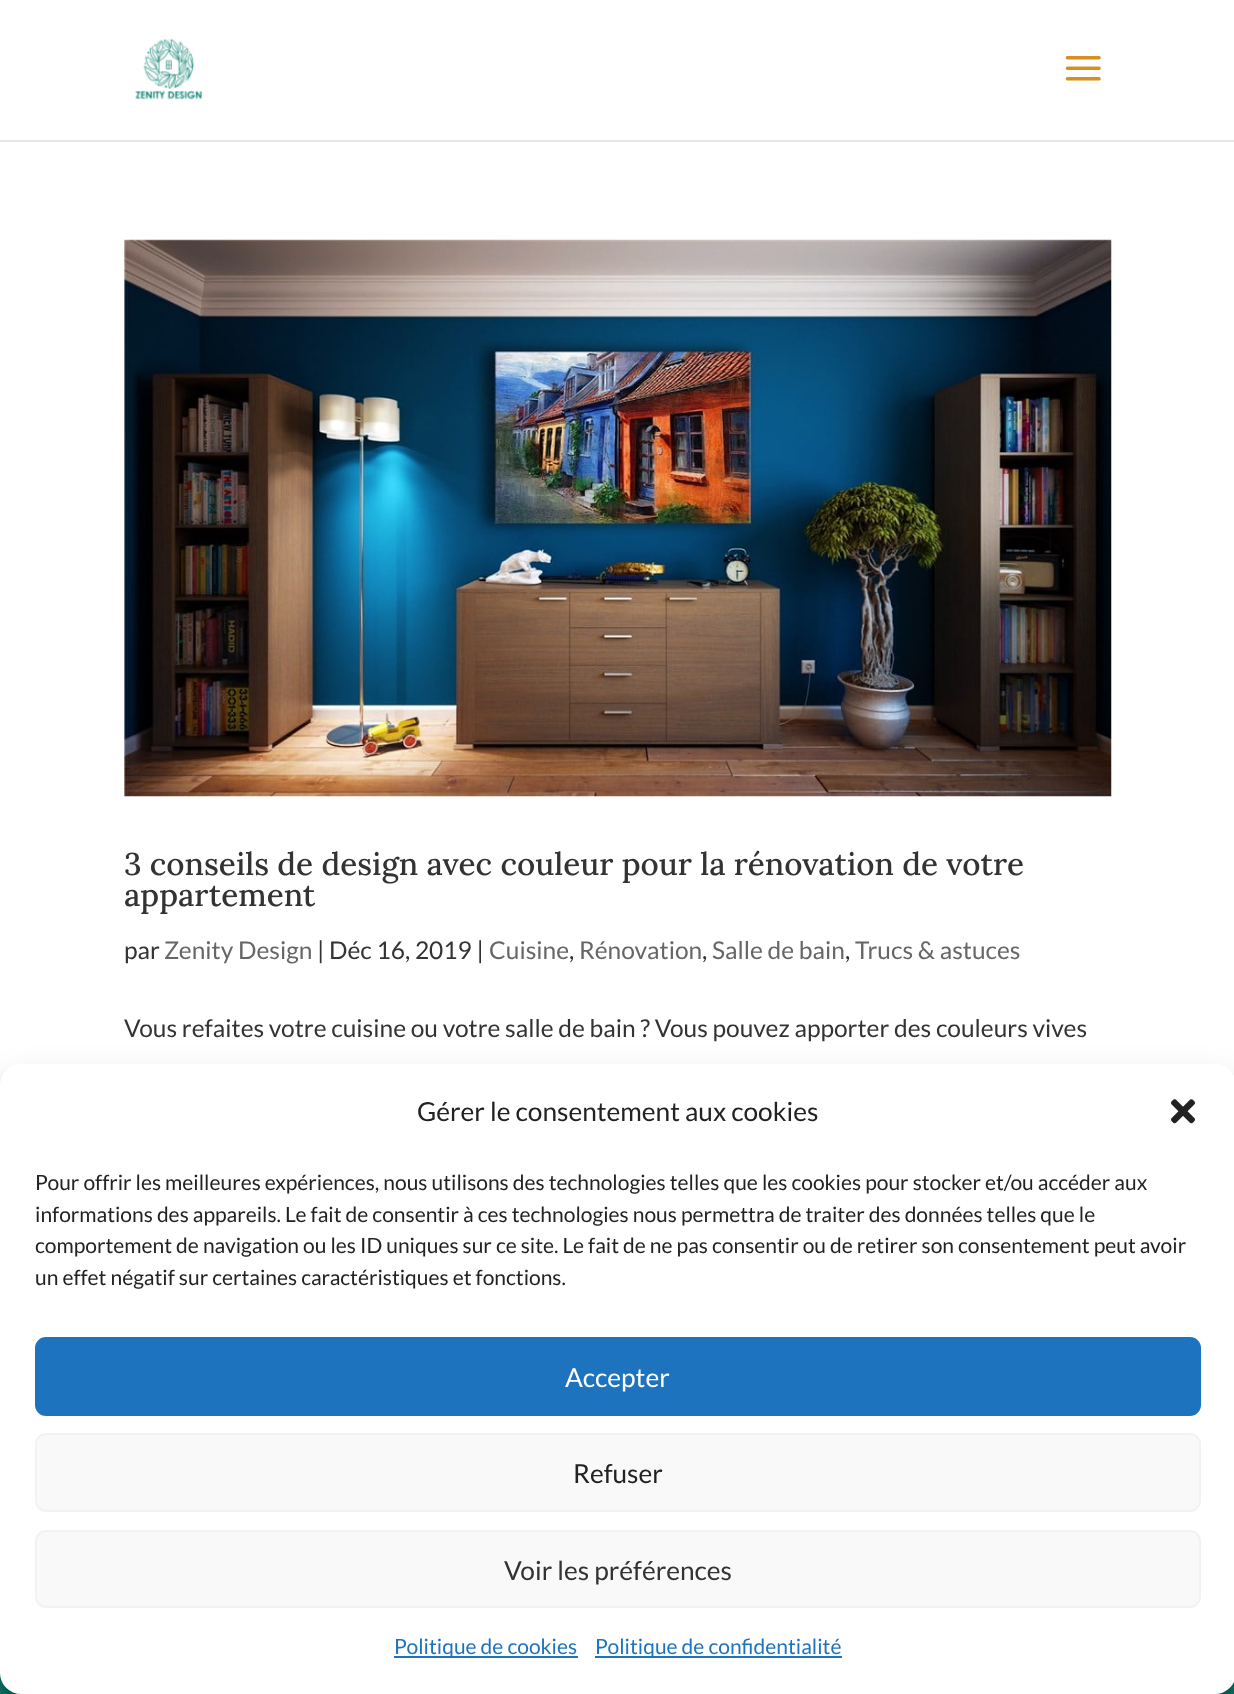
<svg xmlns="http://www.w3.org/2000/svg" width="1234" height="1694">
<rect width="100%" height="100%" fill="#0b8270"/>
<path d="M0 140v2h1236v-140v138z" fill="#e6e6e6"/>
<rect width="1234" height="140" fill="#fff"/>
<image x="135" y="38" width="67" height="62" href="media/1.png"/>
<image x="1065" y="56" width="36" height="25" href="media/2.png"/>
<rect y="142" width="1234" height="943" fill="#fff"/>
<image x="124" y="239" width="988" height="558" href="media/3.png"/>
<text x="124" y="875" style="font-family:Lora;font-size:31.5px;font-weight:500;fill:#333">3 conseils de design avec couleur pour la rénovation de votre</text>
<text x="124" y="906" style="font-family:Lora;font-size:31.5px;font-weight:500;fill:#333">appartement</text>
<text x="124" y="959" style="font-family:Lato;font-size:24.5px;fill:#333">par</text>
<text x="164" y="959" style="font-family:Lato;font-size:24.5px;fill:#666">Zenity Design</text>
<text x="317" y="959" style="font-family:Lato;font-size:24.5px;fill:#333">| Déc 16, 2019 |</text>
<text x="489" y="959" style="font-family:Lato;font-size:24.5px;fill:#666">Cuisine</text>
<text x="569" y="959" style="font-family:Lato;font-size:24.5px;fill:#333">,</text>
<text x="579" y="959" style="font-family:Lato;font-size:24.5px;fill:#666">Rénovation</text>
<text x="702" y="959" style="font-family:Lato;font-size:24.5px;fill:#333">,</text>
<text x="712" y="959" style="font-family:Lato;font-size:24.5px;fill:#666">Salle de bain</text>
<text x="845" y="959" style="font-family:Lato;font-size:24.5px;fill:#333">,</text>
<text x="855" y="959" style="font-family:Lato;font-size:24.5px;fill:#666">Trucs &amp; astuces</text>
<text x="124" y="1037" style="font-family:Lato;font-size:24.5px;fill:#333">Vous refaites votre cuisine ou votre salle de bain ? Vous pouvez apporter des couleurs vives</text>
<rect y="1075" width="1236" height="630" rx="21" fill="#0000003b" filter="blur(5px)"/>
<rect y="1082" width="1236" height="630" rx="21" fill="#00000030" filter="blur(17.5px)"/>
<rect y="1064" width="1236" height="630" rx="21" fill="#fff"/>
<text x="417" y="1121" style="font-family:Lato;font-size:26.25px;fill:#222">Gérer le consentement aux cookies</text>
<image x="1171" y="1099" width="24" height="25" href="media/4.png"/>
<text x="35" y="1190" style="font-family:Lato;font-size:21px;fill:#222">Pour offrir les meilleures expériences, nous utilisons des technologies telles que les cookies pour stocker et/ou accéder aux</text>
<text x="35" y="1222" style="font-family:Lato;font-size:21px;fill:#222">informations des appareils. Le fait de consentir à ces technologies nous permettra de traiter des données telles que le</text>
<text x="35" y="1253" style="font-family:Lato;font-size:21px;fill:#222">comportement de navigation ou les ID uniques sur ce site. Le fait de ne pas consentir ou de retirer son consentement peut avoir</text>
<text x="35" y="1285" style="font-family:Lato;font-size:21px;fill:#222">un effet négatif sur certaines caractéristiques et fonctions.</text>
<rect x="36" y="1338" width="1164" height="77" rx="10" fill="#1e73be" stroke="#1e73be" stroke-width="2"/>
<text x="565" y="1387" style="font-family:Lato;font-size:26.25px;fill:#fff">Accepter</text>
<rect x="36" y="1434" width="1164" height="77" rx="10" fill="#f9f9f9" stroke="#f2f2f2" stroke-width="2"/>
<text x="573" y="1483" style="font-family:Lato;font-size:26.25px;fill:#222">Refuser</text>
<rect x="36" y="1531" width="1164" height="76" rx="10" fill="#f9f9f9" stroke="#f2f2f2" stroke-width="2"/>
<text x="504" y="1580" style="font-family:Lato;font-size:26.25px;fill:#333">Voir les préférences</text>
<rect x="394" y="1656" width="184" height="2" fill="#1e73be"/>
<text x="394" y="1654" style="font-family:Lato;font-size:21px;fill:#1e73be">Politique de cookies</text>
<rect x="595" y="1656" width="247" height="2" fill="#1e73be"/>
<text x="595" y="1654" style="font-family:Lato;font-size:21px;fill:#1e73be">Politique de confidentialité</text>
</svg>
